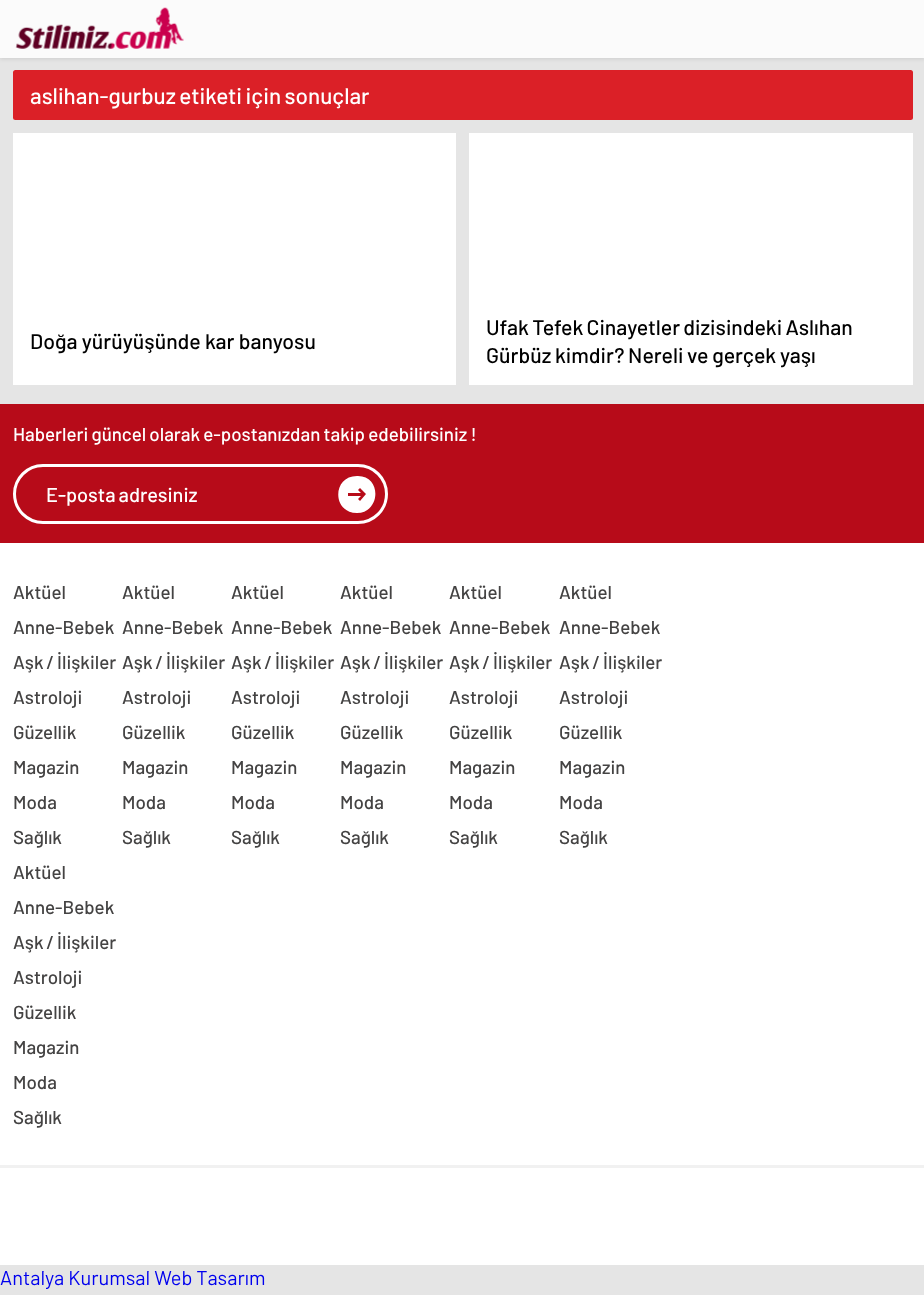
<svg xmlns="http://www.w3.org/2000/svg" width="924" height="1295">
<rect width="100%" height="100%" fill="#e5e5e5"/>
<rect y="1" width="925" height="58" fill="#0000001a" filter="blur(2px)"/>
<rect width="924" height="58" fill="#fbfbfb"/>
<image x="15" y="7" width="169" height="42" href="media/1.png"/>
<rect x="13" y="70" width="900" height="50" rx="2.5" fill="#db2027"/>
<text x="30" y="104" word-spacing="-1" style="font-family:Barlow;font-size:22.5px;font-weight:500;fill:#fff">aslihan-gurbuz etiketi için sonuçlar</text>
<rect x="13" y="133" width="443" height="252" fill="#fff"/>
<text x="30" y="349" style="font-family:Barlow;font-size:21.25px;font-weight:500;fill:#000">Doğa yürüyüşünde kar banyosu</text>
<rect x="469" y="133" width="444" height="252" fill="#fff"/>
<text x="486" y="335" word-spacing="-1" style="font-family:Barlow;font-size:21.25px;font-weight:500;fill:#000">Ufak Tefek Cinayetler dizisindeki Aslıhan</text>
<text x="486" y="363" word-spacing="-0.5" style="font-family:Barlow;font-size:21.25px;font-weight:500;fill:#000">Gürbüz kimdir? Nereli ve gerçek yaşı</text>
<rect y="543" width="924" height="722" fill="#fff"/>
<rect y="404" width="924" height="139" fill="#b70b19"/>
<text x="13" y="441" word-spacing="-0.5" style="font-family:Barlow;font-size:18.75px;font-weight:500;fill:#fff">Haberleri güncel olarak e-postanızdan takip edebilirsiniz !</text>
<rect x="14.5" y="465.5" width="372" height="57" rx="28.5" fill="none" stroke="#fff" stroke-width="3"/>
<text x="46" y="502" word-spacing="-1" style="font-family:Barlow;font-size:20px;font-weight:500;fill:#fff">E-posta adresiniz</text>
<path d="M357 513c-25 0-25-37 0-37c25-1 24 37 0 37zm-9-20v3h13l-3 3l2 2l6-7l-6-6l-2 2l3 3z" fill="#fff"/>
<text x="13" y="599" style="font-family:Barlow;font-size:18.75px;font-weight:500;fill:#444343">Aktüel</text>
<text x="13" y="634" style="font-family:Barlow;font-size:18.75px;font-weight:500;fill:#444343">Anne-Bebek</text>
<text x="13" y="669" word-spacing="-1" style="font-family:Barlow;font-size:18.75px;font-weight:500;fill:#444343">Aşk / İlişkiler</text>
<text x="13" y="704" style="font-family:Barlow;font-size:18.75px;font-weight:500;fill:#444343">Astroloji</text>
<text x="13" y="739" style="font-family:Barlow;font-size:18.75px;font-weight:500;fill:#444343">Güzellik</text>
<text x="13" y="774" style="font-family:Barlow;font-size:18.75px;font-weight:500;fill:#444343">Magazin</text>
<text x="13" y="809" style="font-family:Barlow;font-size:18.75px;font-weight:500;fill:#444343">Moda</text>
<text x="13" y="844" style="font-family:Barlow;font-size:18.75px;font-weight:500;fill:#444343">Sağlık</text>
<text x="122" y="599" style="font-family:Barlow;font-size:18.75px;font-weight:500;fill:#444343">Aktüel</text>
<text x="122" y="634" style="font-family:Barlow;font-size:18.75px;font-weight:500;fill:#444343">Anne-Bebek</text>
<text x="122" y="669" word-spacing="-1" style="font-family:Barlow;font-size:18.75px;font-weight:500;fill:#444343">Aşk / İlişkiler</text>
<text x="122" y="704" style="font-family:Barlow;font-size:18.75px;font-weight:500;fill:#444343">Astroloji</text>
<text x="122" y="739" style="font-family:Barlow;font-size:18.75px;font-weight:500;fill:#444343">Güzellik</text>
<text x="122" y="774" style="font-family:Barlow;font-size:18.75px;font-weight:500;fill:#444343">Magazin</text>
<text x="122" y="809" style="font-family:Barlow;font-size:18.75px;font-weight:500;fill:#444343">Moda</text>
<text x="122" y="844" style="font-family:Barlow;font-size:18.75px;font-weight:500;fill:#444343">Sağlık</text>
<text x="231" y="599" style="font-family:Barlow;font-size:18.75px;font-weight:500;fill:#444343">Aktüel</text>
<text x="231" y="634" style="font-family:Barlow;font-size:18.75px;font-weight:500;fill:#444343">Anne-Bebek</text>
<text x="231" y="669" word-spacing="-1" style="font-family:Barlow;font-size:18.75px;font-weight:500;fill:#444343">Aşk / İlişkiler</text>
<text x="231" y="704" style="font-family:Barlow;font-size:18.75px;font-weight:500;fill:#444343">Astroloji</text>
<text x="231" y="739" style="font-family:Barlow;font-size:18.75px;font-weight:500;fill:#444343">Güzellik</text>
<text x="231" y="774" style="font-family:Barlow;font-size:18.75px;font-weight:500;fill:#444343">Magazin</text>
<text x="231" y="809" style="font-family:Barlow;font-size:18.75px;font-weight:500;fill:#444343">Moda</text>
<text x="231" y="844" style="font-family:Barlow;font-size:18.75px;font-weight:500;fill:#444343">Sağlık</text>
<text x="340" y="599" style="font-family:Barlow;font-size:18.75px;font-weight:500;fill:#444343">Aktüel</text>
<text x="340" y="634" style="font-family:Barlow;font-size:18.75px;font-weight:500;fill:#444343">Anne-Bebek</text>
<text x="340" y="669" word-spacing="-1" style="font-family:Barlow;font-size:18.75px;font-weight:500;fill:#444343">Aşk / İlişkiler</text>
<text x="340" y="704" style="font-family:Barlow;font-size:18.75px;font-weight:500;fill:#444343">Astroloji</text>
<text x="340" y="739" style="font-family:Barlow;font-size:18.75px;font-weight:500;fill:#444343">Güzellik</text>
<text x="340" y="774" style="font-family:Barlow;font-size:18.75px;font-weight:500;fill:#444343">Magazin</text>
<text x="340" y="809" style="font-family:Barlow;font-size:18.75px;font-weight:500;fill:#444343">Moda</text>
<text x="340" y="844" style="font-family:Barlow;font-size:18.75px;font-weight:500;fill:#444343">Sağlık</text>
<text x="449" y="599" style="font-family:Barlow;font-size:18.75px;font-weight:500;fill:#444343">Aktüel</text>
<text x="449" y="634" style="font-family:Barlow;font-size:18.75px;font-weight:500;fill:#444343">Anne-Bebek</text>
<text x="449" y="669" word-spacing="-1" style="font-family:Barlow;font-size:18.75px;font-weight:500;fill:#444343">Aşk / İlişkiler</text>
<text x="449" y="704" style="font-family:Barlow;font-size:18.75px;font-weight:500;fill:#444343">Astroloji</text>
<text x="449" y="739" style="font-family:Barlow;font-size:18.75px;font-weight:500;fill:#444343">Güzellik</text>
<text x="449" y="774" style="font-family:Barlow;font-size:18.75px;font-weight:500;fill:#444343">Magazin</text>
<text x="449" y="809" style="font-family:Barlow;font-size:18.75px;font-weight:500;fill:#444343">Moda</text>
<text x="449" y="844" style="font-family:Barlow;font-size:18.75px;font-weight:500;fill:#444343">Sağlık</text>
<text x="559" y="599" style="font-family:Barlow;font-size:18.75px;font-weight:500;fill:#444343">Aktüel</text>
<text x="559" y="634" style="font-family:Barlow;font-size:18.75px;font-weight:500;fill:#444343">Anne-Bebek</text>
<text x="559" y="669" word-spacing="-1" style="font-family:Barlow;font-size:18.75px;font-weight:500;fill:#444343">Aşk / İlişkiler</text>
<text x="559" y="704" style="font-family:Barlow;font-size:18.75px;font-weight:500;fill:#444343">Astroloji</text>
<text x="559" y="739" style="font-family:Barlow;font-size:18.75px;font-weight:500;fill:#444343">Güzellik</text>
<text x="559" y="774" style="font-family:Barlow;font-size:18.75px;font-weight:500;fill:#444343">Magazin</text>
<text x="559" y="809" style="font-family:Barlow;font-size:18.75px;font-weight:500;fill:#444343">Moda</text>
<text x="559" y="844" style="font-family:Barlow;font-size:18.75px;font-weight:500;fill:#444343">Sağlık</text>
<text x="13" y="879" style="font-family:Barlow;font-size:18.75px;font-weight:500;fill:#444343">Aktüel</text>
<text x="13" y="914" style="font-family:Barlow;font-size:18.75px;font-weight:500;fill:#444343">Anne-Bebek</text>
<text x="13" y="949" word-spacing="-1" style="font-family:Barlow;font-size:18.75px;font-weight:500;fill:#444343">Aşk / İlişkiler</text>
<text x="13" y="984" style="font-family:Barlow;font-size:18.75px;font-weight:500;fill:#444343">Astroloji</text>
<text x="13" y="1019" style="font-family:Barlow;font-size:18.75px;font-weight:500;fill:#444343">Güzellik</text>
<text x="13" y="1054" style="font-family:Barlow;font-size:18.75px;font-weight:500;fill:#444343">Magazin</text>
<text x="13" y="1089" style="font-family:Barlow;font-size:18.75px;font-weight:500;fill:#444343">Moda</text>
<text x="13" y="1124" style="font-family:Barlow;font-size:18.75px;font-weight:500;fill:#444343">Sağlık</text>
<rect y="1165" width="924" height="3" fill="#f1f1f1"/>
<text x="0" y="1285" style="font-family:Barlow;font-size:20px;fill:#00e">Antalya Kurumsal Web Tasarım</text>
</svg>
